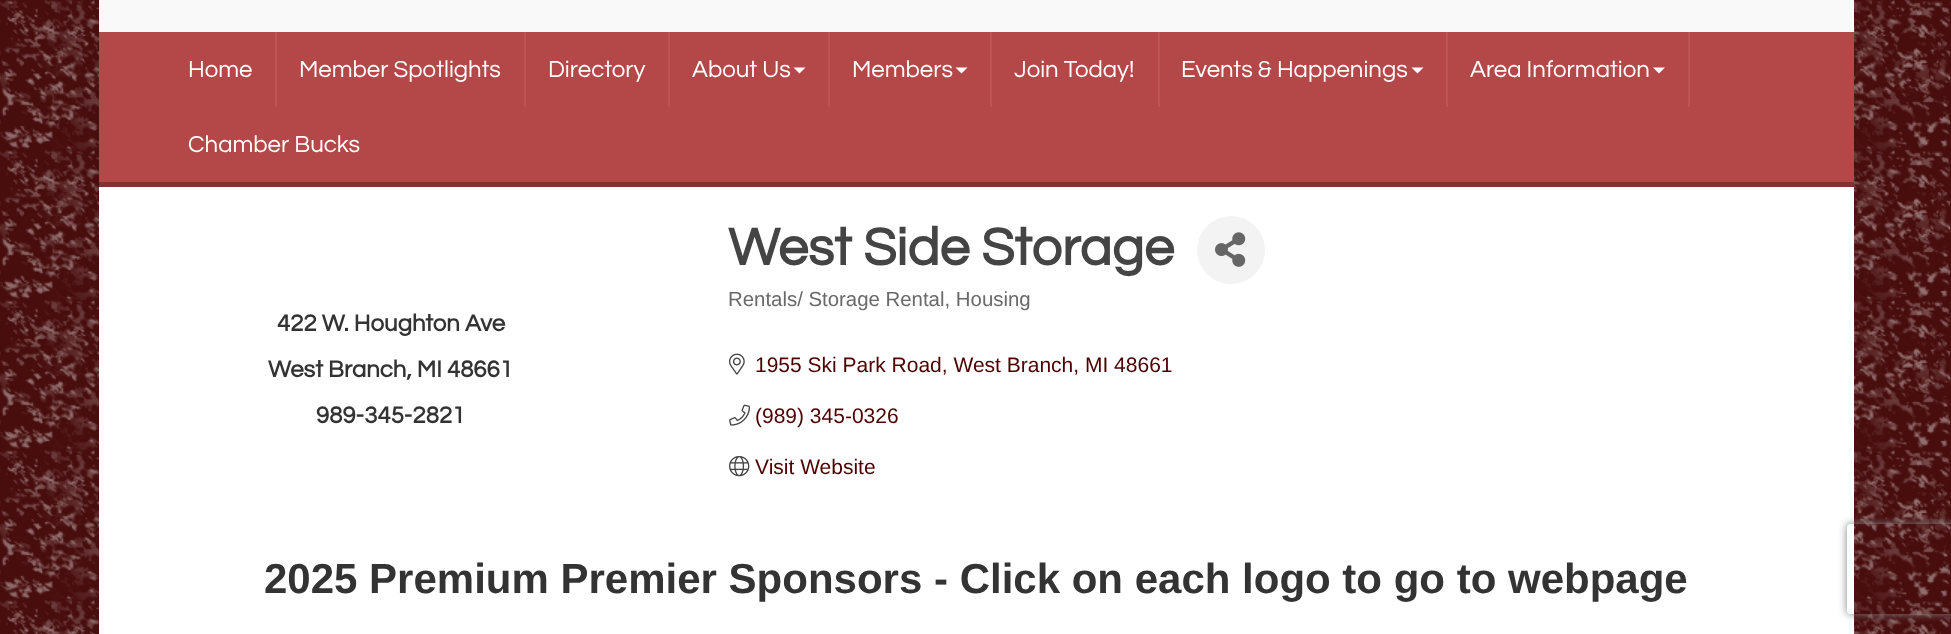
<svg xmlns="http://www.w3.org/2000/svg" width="1951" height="634">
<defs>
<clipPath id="clip1"><path d="M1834 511h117v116h-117zm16 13h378c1.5 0 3 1.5 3 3v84c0 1.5-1.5 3-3 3h-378c-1.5 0-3-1.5-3-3v-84c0-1.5 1.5-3 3-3z" clip-rule="evenodd"/></clipPath>
</defs>
<rect width="100%" height="100%" fill="#480d0d"/>
<image x="0" y="0" width="1951" height="634" href="media/1.png"/>
<rect x="99" width="1755" height="32" fill="#f9f9f9"/>
<rect x="99" y="32" width="1755" height="150" fill="#b44747"/>
<rect x="99" y="182" width="1755" height="5" fill="#7e3232"/>
<rect x="275" y="32" width="2" height="75" fill="#bc5454"/>
<text x="188" y="77" style="font-family:Questrial;font-size:24px;fill:#fff">Home</text>
<rect x="524" y="32" width="2" height="75" fill="#bc5454"/>
<text x="299" y="77" style="font-family:Questrial;font-size:24px;fill:#fff">Member Spotlights</text>
<rect x="668" y="32" width="2" height="75" fill="#bc5454"/>
<text x="548" y="77" style="font-family:Questrial;font-size:24px;fill:#fff">Directory</text>
<rect x="828" y="32" width="2" height="75" fill="#bc5454"/>
<text x="692" y="77" style="font-family:Questrial;font-size:24px;fill:#fff">About Us</text>
<path d="M793.5 67.5h12l-6 6z" fill="#fff"/>
<rect x="990" y="32" width="2" height="75" fill="#bc5454"/>
<text x="852" y="77" style="font-family:Questrial;font-size:24px;fill:#fff">Members</text>
<path d="M955.5 67.5h12l-6 6z" fill="#fff"/>
<rect x="1158" y="32" width="2" height="75" fill="#bc5454"/>
<text x="1014" y="77" style="font-family:Questrial;font-size:24px;fill:#fff">Join Today!</text>
<rect x="1446" y="32" width="2" height="75" fill="#bc5454"/>
<text x="1181" y="77" style="font-family:Questrial;font-size:24px;fill:#fff">Events &amp; Happenings</text>
<path d="M1411.5 67.5h12l-6 6z" fill="#fff"/>
<rect x="1688" y="32" width="2" height="75" fill="#bc5454"/>
<text x="1470" y="77" style="font-family:Questrial;font-size:24px;fill:#fff">Area Information</text>
<path d="M1653 67.5h12l-6 6z" fill="#fff"/>
<text x="188" y="152" style="font-family:Questrial;font-size:24px;fill:#fff">Chamber Bucks</text>
<rect x="99" y="187" width="1755" height="447" fill="#fff"/>
<text x="277" y="331" style="font-family:Questrial;font-size:24px;font-weight:bold;fill:#333">422 W. Houghton Ave</text>
<text x="268" y="377" style="font-family:Questrial;font-size:24px;font-weight:bold;fill:#333">West Branch, MI 48661</text>
<text x="316" y="423" style="font-family:Questrial;font-size:24px;font-weight:bold;fill:#333">989-345-2821</text>
<text x="728" y="265" style="font-family:Questrial;font-size:54px;font-weight:bold;fill:#444">West Side Storage</text>
<circle cx="1231" cy="250" r="34" fill="#f3f3f3"/>
<image x="1215" y="232" width="31" height="35" href="media/2.png"/>
<text x="728" y="306" style="font-family:Liberation Sans;font-size:20.4px;fill:#696969">Rentals/ Storage Rental, Housing</text>
<image x="729" y="353" width="16" height="22" href="media/3.png"/>
<text x="755" y="372" style="font-family:Liberation Sans;font-size:21px;fill:#4c0000">1955 Ski Park Road, West Branch, MI 48661</text>
<image x="729" y="404" width="21" height="22" href="media/4.png"/>
<text x="755" y="423" style="font-family:Liberation Sans;font-size:21px;fill:#4c0000">(989) 345-0326</text>
<image x="729" y="456" width="21" height="21" href="media/5.png"/>
<text x="755" y="474" style="font-family:Liberation Sans;font-size:21px;fill:#4c0000">Visit Website</text>
<text x="264" y="593" style="font-family:Liberation Sans;font-size:42px;font-weight:bold;fill:#333">2025 Premium Premier Sponsors - Click on each logo to go to webpage</text>
<g clip-path="url(#clip1)">
<rect x="1847" y="524" width="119" height="90" rx="3" fill="#808080" filter="blur(4px)"/>
</g>
</svg>
